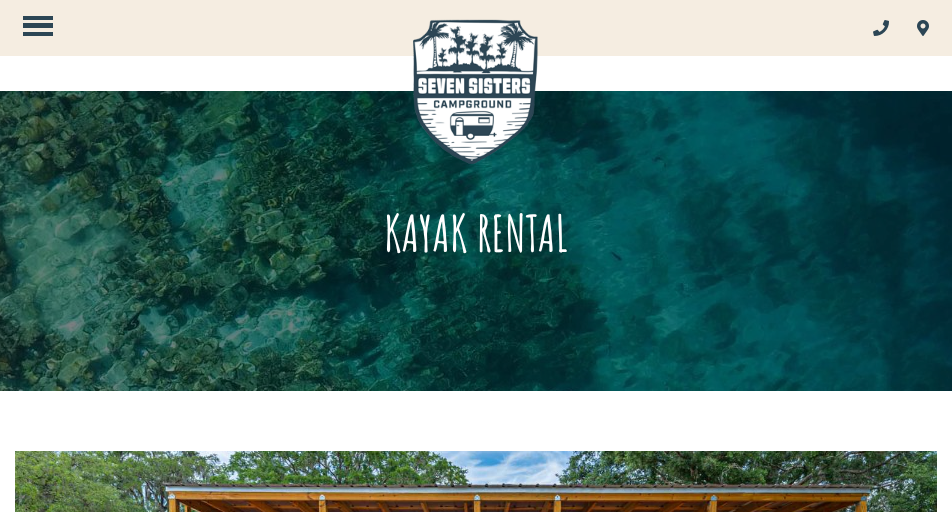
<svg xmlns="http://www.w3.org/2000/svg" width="952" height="512">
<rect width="100%" height="100%" fill="#fff"/>
<rect width="952" height="56" fill="#f5ede1"/>
<rect x="23" y="23" width="30" height="5" fill="#2c4655"/>
<rect x="23" y="16" width="30" height="4" fill="#2c4655"/>
<rect x="23" y="32" width="30" height="4" fill="#2c4655"/>
<image x="873" y="20" width="16" height="16" href="media/1.png"/>
<image x="917" y="20" width="12" height="16" href="media/2.png"/>
<image x="0" y="91" width="952" height="300" href="media/4.png"/>
<image x="413" y="19" width="125" height="145" href="media/3.png"/>
<text x="384" y="252" style="font-family:Amatic SC;font-size:50px;font-weight:bold;fill:#fff">KAYAK RENTAL</text>
<image x="15" y="451" width="922" height="61" href="media/5.png"/>
</svg>
